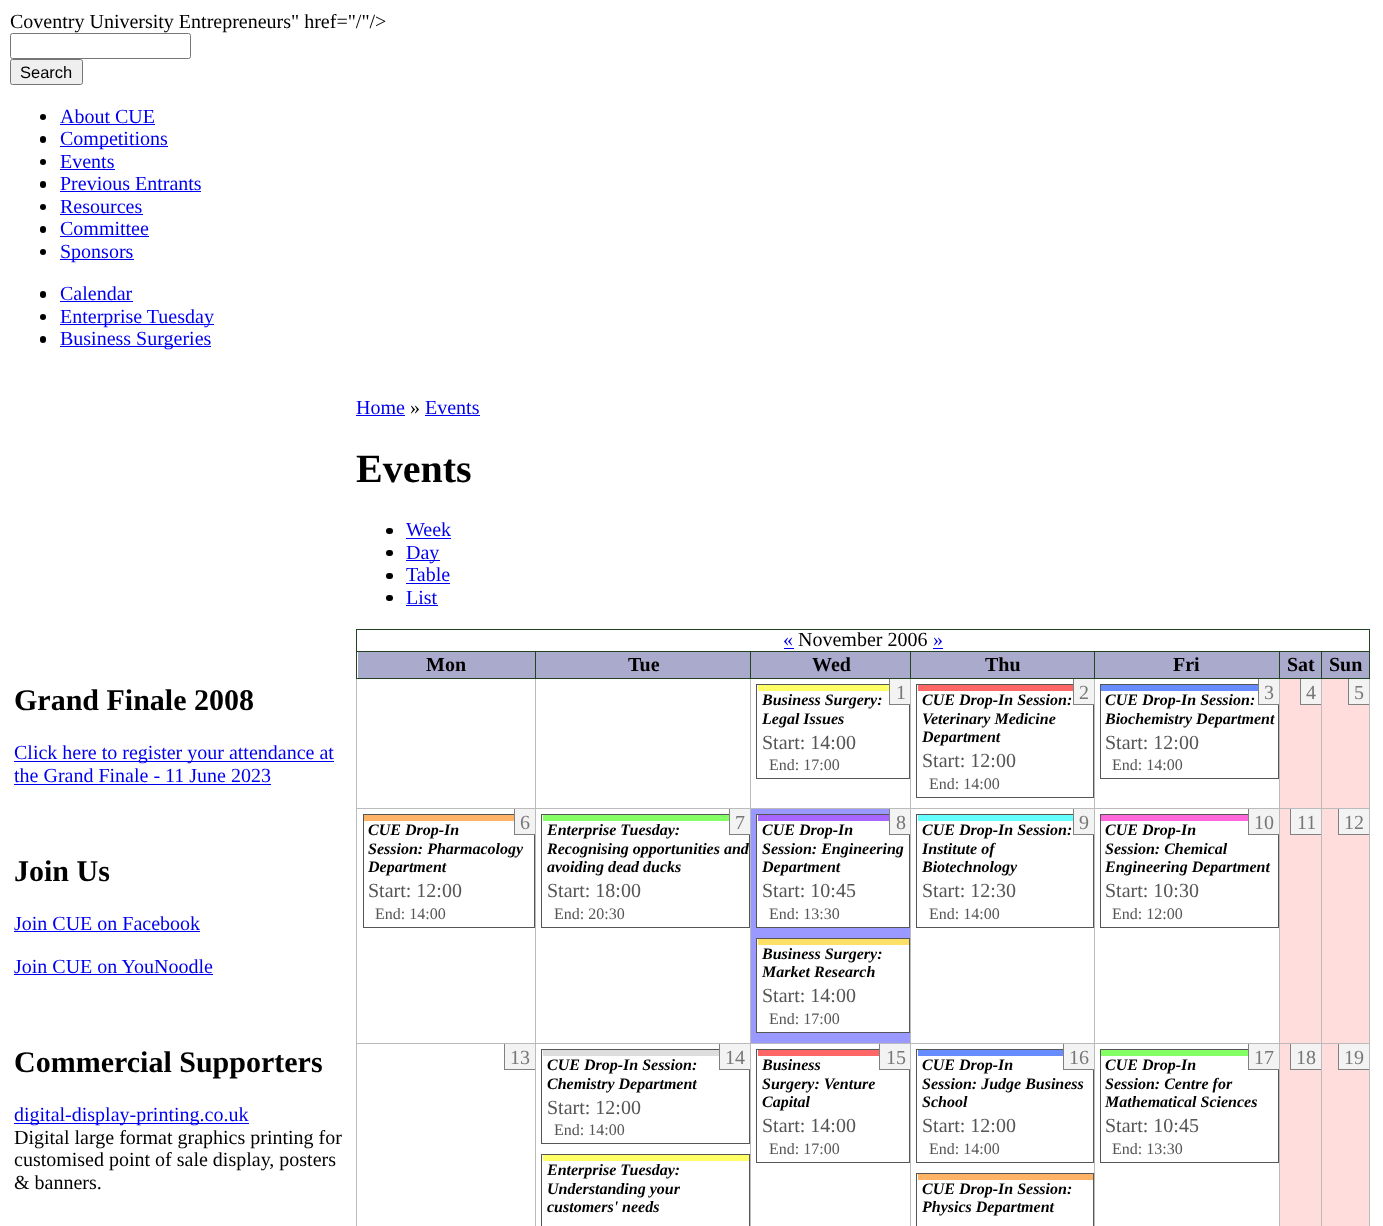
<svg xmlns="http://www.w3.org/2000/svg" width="1383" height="1226">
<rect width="100%" height="100%" fill="#fff"/>
<text x="10" y="28" style="font-family:Liberation Serif;font-size:20px;fill:#000">Coventry University Entrepreneurs" href="/"/&gt;</text>
<rect x="10.5" y="33.5" width="180" height="25" rx="2" fill="none" stroke="#767676"/>
<rect x="10.5" y="59.5" width="72" height="25" rx="2" fill="#efefef" stroke="#767676"/>
<text x="20" y="78" style="font-family:Liberation Sans;font-size:16.5px;fill:#000">Search</text>
<circle cx="43" cy="117" r="3" fill="#000"/>
<text x="60" y="123" style="font-family:Liberation Serif;font-size:20px;fill:#00e">About CUE</text>
<rect x="60" y="124" width="95" height="1" fill="#00e"/>
<rect x="40" y="136" width="6" height="7" rx="3" fill="#000"/>
<rect x="60" y="146" width="108" height="1" fill="#00e"/>
<text x="60" y="145" style="font-family:Liberation Serif;font-size:20px;fill:#00e">Competitions</text>
<circle cx="43" cy="162" r="3" fill="#000"/>
<text x="60" y="168" style="font-family:Liberation Serif;font-size:20px;fill:#00e">Events</text>
<rect x="60" y="169" width="55" height="1" fill="#00e"/>
<rect x="40" y="181" width="6" height="7" rx="3" fill="#000"/>
<text x="60" y="190" style="font-family:Liberation Serif;font-size:20px;fill:#00e">Previous Entrants</text>
<rect x="60" y="191" width="141" height="1" fill="#00e"/>
<circle cx="43" cy="207" r="3" fill="#000"/>
<text x="60" y="213" style="font-family:Liberation Serif;font-size:20px;fill:#00e">Resources</text>
<rect x="60" y="214" width="83" height="1" fill="#00e"/>
<rect x="40" y="226" width="6" height="7" rx="3" fill="#000"/>
<text x="60" y="235" style="font-family:Liberation Serif;font-size:20px;fill:#00e">Committee</text>
<rect x="60" y="236" width="89" height="1" fill="#00e"/>
<circle cx="43" cy="252" r="3" fill="#000"/>
<rect x="60" y="259" width="74" height="1" fill="#00e"/>
<text x="60" y="258" style="font-family:Liberation Serif;font-size:20px;fill:#00e">Sponsors</text>
<rect x="40" y="291" width="6" height="7" rx="3" fill="#000"/>
<text x="60" y="300" style="font-family:Liberation Serif;font-size:20px;fill:#00e">Calendar</text>
<rect x="60" y="301" width="73" height="1" fill="#00e"/>
<circle cx="43" cy="317" r="3" fill="#000"/>
<rect x="60" y="324" width="154" height="1" fill="#00e"/>
<text x="60" y="323" style="font-family:Liberation Serif;font-size:20px;fill:#00e">Enterprise Tuesday</text>
<rect x="40" y="336" width="6" height="7" rx="3" fill="#000"/>
<rect x="60" y="346" width="151" height="1" fill="#00e"/>
<text x="60" y="345" style="font-family:Liberation Serif;font-size:20px;fill:#00e">Business Surgeries</text>
<text x="14" y="710" style="font-family:Liberation Serif;font-size:30px;font-weight:bold;fill:#000">Grand Finale 2008</text>
<rect x="14" y="761" width="320" height="1" fill="#00e"/>
<text x="14" y="759" style="font-family:Liberation Serif;font-size:20px;fill:#00e">Click here to register your attendance at</text>
<text x="14" y="782" style="font-family:Liberation Serif;font-size:20px;fill:#00e">the Grand Finale - 11 June 2023</text>
<rect x="14" y="784" width="257" height="1" fill="#00e"/>
<text x="14" y="881" style="font-family:Liberation Serif;font-size:30px;font-weight:bold;fill:#000">Join Us</text>
<text x="14" y="930" style="font-family:Liberation Serif;font-size:20px;fill:#00e">Join CUE on Facebook</text>
<rect x="14" y="931" width="186" height="1" fill="#00e"/>
<text x="14" y="973" style="font-family:Liberation Serif;font-size:20px;fill:#00e">Join CUE on YouNoodle</text>
<rect x="14" y="974" width="199" height="1" fill="#00e"/>
<text x="14" y="1072" style="font-family:Liberation Serif;font-size:30px;font-weight:bold;fill:#000">Commercial Supporters</text>
<rect x="14" y="1123" width="235" height="1" fill="#00e"/>
<text x="14" y="1121" style="font-family:Liberation Serif;font-size:20px;fill:#00e">digital-display-printing.co.uk</text>
<text x="14" y="1144" style="font-family:Liberation Serif;font-size:20px;fill:#000">Digital large format graphics printing for</text>
<text x="14" y="1166" style="font-family:Liberation Serif;font-size:20px;fill:#000">customised point of sale display, posters</text>
<text x="14" y="1189" style="font-family:Liberation Serif;font-size:20px;fill:#000">&amp; banners.</text>
<text x="356" y="414" style="font-family:Liberation Serif;font-size:20px;fill:#00e">Home</text>
<rect x="356" y="415" width="49" height="1" fill="#00e"/>
<text x="410" y="414" style="font-family:Liberation Serif;font-size:20px;fill:#000">»</text>
<text x="425" y="414" style="font-family:Liberation Serif;font-size:20px;fill:#00e">Events</text>
<rect x="425" y="415" width="55" height="1" fill="#00e"/>
<text x="356" y="482" style="font-family:Liberation Serif;font-size:40px;font-weight:bold;fill:#000">Events</text>
<rect x="386" y="528" width="7" height="6" rx="3" fill="#000"/>
<text x="406" y="536" style="font-family:Liberation Serif;font-size:20px;fill:#00e">Week</text>
<rect x="406" y="538" width="45" height="1" fill="#00e"/>
<rect x="386" y="550" width="7" height="6" rx="3" fill="#000"/>
<rect x="406" y="560" width="34" height="1" fill="#00e"/>
<text x="406" y="559" style="font-family:Liberation Serif;font-size:20px;fill:#00e">Day</text>
<rect x="386" y="573" width="7" height="6" rx="3" fill="#000"/>
<text x="406" y="581" style="font-family:Liberation Serif;font-size:20px;fill:#00e">Table</text>
<rect x="406" y="583" width="44" height="1" fill="#00e"/>
<rect x="386" y="595" width="7" height="6" rx="3" fill="#000"/>
<text x="406" y="604" style="font-family:Liberation Serif;font-size:20px;fill:#00e">List</text>
<rect x="406" y="605" width="32" height="1" fill="#00e"/>
<rect x="356" y="629" width="1014" height="1" fill="#242"/>
<rect x="1369" y="629" width="1" height="22" fill="#242"/>
<rect x="356" y="629" width="1" height="49" fill="#242"/>
<text x="783" y="646" style="font-family:Liberation Serif;font-size:20px;fill:#00e">«</text>
<rect x="784" y="648" width="10" height="1" fill="#00e"/>
<text x="798" y="646" style="font-family:Liberation Serif;font-size:20px;fill:#000">November 2006</text>
<text x="933" y="646" style="font-family:Liberation Serif;font-size:20px;fill:#00e">»</text>
<rect x="933" y="648" width="10" height="1" fill="#00e"/>
<rect x="358" y="652" width="177" height="26" fill="#aac"/>
<rect x="1321" y="651" width="49" height="1" fill="#242"/>
<rect x="1321" y="808" width="49" height="1" fill="#bbb"/>
<rect x="1321" y="1043" width="49" height="1" fill="#bbb"/>
<rect x="1369" y="1043" width="1" height="183" fill="#bbb"/>
<rect x="1369" y="678" width="1" height="366" fill="#bbb"/>
<rect x="1369" y="651" width="1" height="28" fill="#242"/>
<rect x="1321" y="1043" width="1" height="183" fill="#bbb"/>
<rect x="1279" y="1043" width="44" height="1" fill="#bbb"/>
<rect x="1321" y="808" width="1" height="236" fill="#bbb"/>
<rect x="1279" y="808" width="44" height="1" fill="#bbb"/>
<rect x="1321" y="678" width="1" height="131" fill="#bbb"/>
<rect x="1321" y="678" width="49" height="1" fill="#242"/>
<rect x="1321" y="651" width="1" height="28" fill="#242"/>
<rect x="1279" y="651" width="44" height="1" fill="#242"/>
<rect x="1279" y="1043" width="1" height="183" fill="#bbb"/>
<rect x="1094" y="1043" width="186" height="1" fill="#bbb"/>
<rect x="1279" y="808" width="1" height="236" fill="#bbb"/>
<rect x="1094" y="808" width="186" height="1" fill="#bbb"/>
<rect x="1279" y="678" width="1" height="131" fill="#bbb"/>
<rect x="1279" y="678" width="44" height="1" fill="#242"/>
<rect x="1279" y="651" width="1" height="28" fill="#242"/>
<rect x="1094" y="651" width="186" height="1" fill="#242"/>
<rect x="1094" y="1043" width="1" height="183" fill="#bbb"/>
<rect x="910" y="1043" width="185" height="1" fill="#bbb"/>
<rect x="1094" y="808" width="1" height="236" fill="#bbb"/>
<rect x="910" y="808" width="185" height="1" fill="#bbb"/>
<rect x="1094" y="678" width="1" height="131" fill="#bbb"/>
<rect x="1094" y="678" width="186" height="1" fill="#242"/>
<rect x="1094" y="651" width="1" height="28" fill="#242"/>
<rect x="910" y="651" width="185" height="1" fill="#242"/>
<rect x="910" y="1043" width="1" height="183" fill="#bbb"/>
<rect x="750" y="1043" width="161" height="1" fill="#bbb"/>
<rect x="910" y="808" width="1" height="236" fill="#bbb"/>
<rect x="750" y="808" width="161" height="1" fill="#bbb"/>
<rect x="910" y="678" width="1" height="131" fill="#bbb"/>
<rect x="910" y="678" width="185" height="1" fill="#242"/>
<rect x="910" y="651" width="1" height="28" fill="#242"/>
<rect x="750" y="651" width="161" height="1" fill="#242"/>
<rect x="750" y="1043" width="1" height="183" fill="#bbb"/>
<rect x="535" y="1043" width="216" height="1" fill="#bbb"/>
<rect x="750" y="808" width="1" height="236" fill="#bbb"/>
<rect x="535" y="808" width="216" height="1" fill="#bbb"/>
<rect x="750" y="678" width="1" height="131" fill="#bbb"/>
<rect x="750" y="678" width="161" height="1" fill="#242"/>
<rect x="750" y="651" width="1" height="28" fill="#242"/>
<rect x="535" y="651" width="216" height="1" fill="#242"/>
<rect x="535" y="1043" width="1" height="183" fill="#bbb"/>
<rect x="356" y="1043" width="180" height="1" fill="#bbb"/>
<rect x="535" y="808" width="1" height="236" fill="#bbb"/>
<rect x="356" y="808" width="180" height="1" fill="#bbb"/>
<rect x="535" y="678" width="1" height="131" fill="#bbb"/>
<rect x="535" y="678" width="216" height="1" fill="#242"/>
<rect x="535" y="651" width="1" height="28" fill="#242"/>
<rect x="356" y="651" width="180" height="1" fill="#242"/>
<rect x="356" y="1043" width="1" height="183" fill="#bbb"/>
<rect x="356" y="678" width="1" height="366" fill="#bbb"/>
<rect x="356" y="678" width="180" height="1" fill="#242"/>
<text x="426" y="671" style="font-family:Liberation Serif;font-size:20px;font-weight:bold;fill:#000">Mon</text>
<rect x="536" y="652" width="214" height="26" fill="#aac"/>
<text x="628" y="671" style="font-family:Liberation Serif;font-size:20px;font-weight:bold;fill:#000">Tue</text>
<rect x="751" y="652" width="159" height="26" fill="#aac"/>
<text x="812" y="671" style="font-family:Liberation Serif;font-size:20px;font-weight:bold;fill:#000">Wed</text>
<rect x="911" y="652" width="183" height="26" fill="#aac"/>
<text x="985" y="671" style="font-family:Liberation Serif;font-size:20px;font-weight:bold;fill:#000">Thu</text>
<rect x="1095" y="652" width="184" height="26" fill="#aac"/>
<text x="1173" y="671" style="font-family:Liberation Serif;font-size:20px;font-weight:bold;fill:#000">Fri</text>
<rect x="1280" y="652" width="41" height="26" fill="#aac"/>
<text x="1287" y="671" style="font-family:Liberation Serif;font-size:20px;font-weight:bold;fill:#000">Sat</text>
<rect x="1322" y="652" width="47" height="26" fill="#aac"/>
<text x="1329" y="671" style="font-family:Liberation Serif;font-size:20px;font-weight:bold;fill:#000">Sun</text>
<rect x="756.5" y="684.5" width="153" height="94" fill="none" stroke="#555"/>
<rect x="758" y="685" width="131" height="6" fill="#ff6"/>
<text x="762" y="705" style="font-family:Liberation Serif;font-size:16px;font-weight:bold;font-style:italic;fill:#000">Business Surgery:</text>
<text x="762" y="724" style="font-family:Liberation Serif;font-size:16px;font-weight:bold;font-style:italic;fill:#000">Legal Issues</text>
<text x="762" y="749" style="font-family:Liberation Serif;font-size:20px;fill:#555">Start: 14:00</text>
<text x="769" y="770" style="font-family:Liberation Serif;font-size:16px;fill:#555">End: 17:00</text>
<rect x="890" y="679" width="20" height="25" fill="#f3f3f3"/>
<rect x="889" y="704" width="21" height="1" fill="#808080"/>
<rect x="889" y="679" width="1" height="26" fill="#808080"/>
<text x="896" y="699" style="font-family:Liberation Serif;font-size:20px;fill:#777">1</text>
<rect x="916.5" y="684.5" width="177" height="113" fill="none" stroke="#555"/>
<rect x="918" y="685" width="155" height="6" fill="#f66"/>
<text x="922" y="705" style="font-family:Liberation Serif;font-size:16px;font-weight:bold;font-style:italic;fill:#000">CUE Drop-In Session:</text>
<text x="922" y="724" style="font-family:Liberation Serif;font-size:16px;font-weight:bold;font-style:italic;fill:#000">Veterinary Medicine</text>
<text x="922" y="742" style="font-family:Liberation Serif;font-size:16px;font-weight:bold;font-style:italic;fill:#000">Department</text>
<text x="922" y="767" style="font-family:Liberation Serif;font-size:20px;fill:#555">Start: 12:00</text>
<text x="929" y="789" style="font-family:Liberation Serif;font-size:16px;fill:#555">End: 14:00</text>
<rect x="1074" y="679" width="20" height="25" fill="#f3f3f3"/>
<rect x="1073" y="704" width="21" height="1" fill="#808080"/>
<rect x="1073" y="679" width="1" height="26" fill="#808080"/>
<text x="1079" y="699" style="font-family:Liberation Serif;font-size:20px;fill:#777">2</text>
<rect x="1100.5" y="684.5" width="178" height="94" fill="none" stroke="#555"/>
<rect x="1259" y="679" width="20" height="25" fill="#f3f3f3"/>
<rect x="1258" y="704" width="21" height="1" fill="#808080"/>
<rect x="1258" y="679" width="1" height="26" fill="#808080"/>
<text x="1264" y="699" style="font-family:Liberation Serif;font-size:20px;fill:#777">3</text>
<rect x="1101" y="685" width="157" height="6" fill="#668cff"/>
<text x="1105" y="705" style="font-family:Liberation Serif;font-size:16px;font-weight:bold;font-style:italic;fill:#000">CUE Drop-In Session:</text>
<text x="1105" y="724" style="font-family:Liberation Serif;font-size:16px;font-weight:bold;font-style:italic;fill:#000">Biochemistry Department</text>
<text x="1105" y="749" style="font-family:Liberation Serif;font-size:20px;fill:#555">Start: 12:00</text>
<text x="1112" y="770" style="font-family:Liberation Serif;font-size:16px;fill:#555">End: 14:00</text>
<rect x="1280" y="679" width="41" height="129" fill="#fdd"/>
<rect x="1301" y="679" width="20" height="25" fill="#f3f3f3"/>
<rect x="1300" y="704" width="21" height="1" fill="#808080"/>
<rect x="1300" y="679" width="1" height="26" fill="#808080"/>
<text x="1306" y="699" style="font-family:Liberation Serif;font-size:20px;fill:#777">4</text>
<rect x="1322" y="679" width="47" height="129" fill="#fdd"/>
<rect x="1349" y="679" width="20" height="25" fill="#f3f3f3"/>
<rect x="1348" y="704" width="21" height="1" fill="#808080"/>
<rect x="1348" y="679" width="1" height="26" fill="#808080"/>
<text x="1354" y="699" style="font-family:Liberation Serif;font-size:20px;fill:#777">5</text>
<rect x="363.5" y="814.5" width="171" height="113" fill="none" stroke="#555"/>
<rect x="515" y="809" width="20" height="25" fill="#f3f3f3"/>
<rect x="514" y="834" width="21" height="1" fill="#808080"/>
<rect x="514" y="809" width="1" height="26" fill="#808080"/>
<text x="520" y="829" style="font-family:Liberation Serif;font-size:20px;fill:#777">6</text>
<rect x="364" y="815" width="150" height="6" fill="#ffb366"/>
<text x="368" y="835" style="font-family:Liberation Serif;font-size:16px;font-weight:bold;font-style:italic;fill:#000">CUE Drop-In</text>
<text x="368" y="854" style="font-family:Liberation Serif;font-size:16px;font-weight:bold;font-style:italic;fill:#000">Session: Pharmacology</text>
<text x="368" y="872" style="font-family:Liberation Serif;font-size:16px;font-weight:bold;font-style:italic;fill:#000">Department</text>
<text x="368" y="897" style="font-family:Liberation Serif;font-size:20px;fill:#555">Start: 12:00</text>
<text x="375" y="919" style="font-family:Liberation Serif;font-size:16px;fill:#555">End: 14:00</text>
<rect x="541.5" y="814.5" width="208" height="113" fill="none" stroke="#555"/>
<rect x="730" y="809" width="20" height="25" fill="#f3f3f3"/>
<rect x="729" y="834" width="21" height="1" fill="#808080"/>
<rect x="729" y="809" width="1" height="26" fill="#808080"/>
<text x="735" y="829" style="font-family:Liberation Serif;font-size:20px;fill:#777">7</text>
<rect x="543" y="815" width="186" height="6" fill="#85ff66"/>
<text x="547" y="835" style="font-family:Liberation Serif;font-size:16px;font-weight:bold;font-style:italic;fill:#000">Enterprise Tuesday:</text>
<text x="547" y="854" style="font-family:Liberation Serif;font-size:16px;font-weight:bold;font-style:italic;fill:#000">Recognising opportunities and</text>
<text x="547" y="872" style="font-family:Liberation Serif;font-size:16px;font-weight:bold;font-style:italic;fill:#000">avoiding dead ducks</text>
<text x="547" y="897" style="font-family:Liberation Serif;font-size:20px;fill:#555">Start: 18:00</text>
<text x="554" y="919" style="font-family:Liberation Serif;font-size:16px;fill:#555">End: 20:30</text>
<rect x="751" y="809" width="159" height="234" fill="#99f"/>
<rect x="756.5" y="814.5" width="153" height="113" fill="#fff" stroke="#555"/>
<rect x="890" y="809" width="20" height="25" fill="#f3f3f3"/>
<rect x="889" y="834" width="21" height="1" fill="#808080"/>
<rect x="889" y="809" width="1" height="26" fill="#808080"/>
<text x="896" y="829" style="font-family:Liberation Serif;font-size:20px;fill:#777">8</text>
<rect x="758" y="815" width="131" height="6" fill="#a666ff"/>
<text x="762" y="835" style="font-family:Liberation Serif;font-size:16px;font-weight:bold;font-style:italic;fill:#000">CUE Drop-In</text>
<text x="762" y="854" style="font-family:Liberation Serif;font-size:16px;font-weight:bold;font-style:italic;fill:#000">Session: Engineering</text>
<text x="762" y="872" style="font-family:Liberation Serif;font-size:16px;font-weight:bold;font-style:italic;fill:#000">Department</text>
<text x="762" y="897" style="font-family:Liberation Serif;font-size:20px;fill:#555">Start: 10:45</text>
<text x="769" y="919" style="font-family:Liberation Serif;font-size:16px;fill:#555">End: 13:30</text>
<rect x="756.5" y="938.5" width="153" height="94" fill="#fff" stroke="#555"/>
<rect x="758" y="939" width="151" height="6" fill="#ffe066"/>
<text x="762" y="959" style="font-family:Liberation Serif;font-size:16px;font-weight:bold;font-style:italic;fill:#000">Business Surgery:</text>
<text x="762" y="977" style="font-family:Liberation Serif;font-size:16px;font-weight:bold;font-style:italic;fill:#000">Market Research</text>
<text x="762" y="1002" style="font-family:Liberation Serif;font-size:20px;fill:#555">Start: 14:00</text>
<text x="769" y="1024" style="font-family:Liberation Serif;font-size:16px;fill:#555">End: 17:00</text>
<rect x="916.5" y="814.5" width="177" height="113" fill="none" stroke="#555"/>
<rect x="918" y="815" width="155" height="6" fill="#6ff"/>
<text x="922" y="835" style="font-family:Liberation Serif;font-size:16px;font-weight:bold;font-style:italic;fill:#000">CUE Drop-In Session:</text>
<text x="922" y="854" style="font-family:Liberation Serif;font-size:16px;font-weight:bold;font-style:italic;fill:#000">Institute of</text>
<text x="922" y="872" style="font-family:Liberation Serif;font-size:16px;font-weight:bold;font-style:italic;fill:#000">Biotechnology</text>
<text x="922" y="897" style="font-family:Liberation Serif;font-size:20px;fill:#555">Start: 12:30</text>
<text x="929" y="919" style="font-family:Liberation Serif;font-size:16px;fill:#555">End: 14:00</text>
<rect x="1074" y="809" width="20" height="25" fill="#f3f3f3"/>
<rect x="1073" y="834" width="21" height="1" fill="#808080"/>
<rect x="1073" y="809" width="1" height="26" fill="#808080"/>
<text x="1079" y="829" style="font-family:Liberation Serif;font-size:20px;fill:#777">9</text>
<rect x="1100.5" y="814.5" width="178" height="113" fill="none" stroke="#555"/>
<rect x="1249" y="809" width="30" height="25" fill="#f3f3f3"/>
<rect x="1248" y="834" width="31" height="1" fill="#808080"/>
<rect x="1248" y="809" width="1" height="26" fill="#808080"/>
<text x="1254" y="829" style="font-family:Liberation Serif;font-size:20px;fill:#777">10</text>
<rect x="1101" y="815" width="147" height="6" fill="#ff66d9"/>
<text x="1105" y="835" style="font-family:Liberation Serif;font-size:16px;font-weight:bold;font-style:italic;fill:#000">CUE Drop-In</text>
<text x="1105" y="854" style="font-family:Liberation Serif;font-size:16px;font-weight:bold;font-style:italic;fill:#000">Session: Chemical</text>
<text x="1105" y="872" style="font-family:Liberation Serif;font-size:16px;font-weight:bold;font-style:italic;fill:#000">Engineering Department</text>
<text x="1105" y="897" style="font-family:Liberation Serif;font-size:20px;fill:#555">Start: 10:30</text>
<text x="1112" y="919" style="font-family:Liberation Serif;font-size:16px;fill:#555">End: 12:00</text>
<rect x="1280" y="809" width="41" height="234" fill="#fdd"/>
<rect x="1291" y="809" width="30" height="25" fill="#f3f3f3"/>
<rect x="1290" y="834" width="31" height="1" fill="#808080"/>
<rect x="1290" y="809" width="1" height="26" fill="#808080"/>
<text x="1297" y="829" style="font-family:Liberation Serif;font-size:20px;fill:#777">11</text>
<rect x="1322" y="809" width="47" height="234" fill="#fdd"/>
<rect x="1339" y="809" width="30" height="25" fill="#f3f3f3"/>
<rect x="1338" y="834" width="31" height="1" fill="#808080"/>
<rect x="1338" y="809" width="1" height="26" fill="#808080"/>
<text x="1344" y="829" style="font-family:Liberation Serif;font-size:20px;fill:#777">12</text>
<rect x="505" y="1044" width="30" height="25" fill="#f3f3f3"/>
<rect x="504" y="1069" width="31" height="1" fill="#808080"/>
<rect x="504" y="1044" width="1" height="26" fill="#808080"/>
<text x="510" y="1064" style="font-family:Liberation Serif;font-size:20px;fill:#777">13</text>
<rect x="541.5" y="1049.5" width="208" height="94" fill="none" stroke="#555"/>
<rect x="543" y="1050" width="176" height="6" fill="#ddd"/>
<text x="547" y="1070" style="font-family:Liberation Serif;font-size:16px;font-weight:bold;font-style:italic;fill:#000">CUE Drop-In Session:</text>
<text x="547" y="1089" style="font-family:Liberation Serif;font-size:16px;font-weight:bold;font-style:italic;fill:#000">Chemistry Department</text>
<text x="547" y="1114" style="font-family:Liberation Serif;font-size:20px;fill:#555">Start: 12:00</text>
<text x="554" y="1135" style="font-family:Liberation Serif;font-size:16px;fill:#555">End: 14:00</text>
<rect x="720" y="1044" width="30" height="25" fill="#f3f3f3"/>
<rect x="719" y="1069" width="31" height="1" fill="#808080"/>
<rect x="719" y="1044" width="1" height="26" fill="#808080"/>
<text x="725" y="1064" style="font-family:Liberation Serif;font-size:20px;fill:#777">14</text>
<rect x="541.5" y="1154.5" width="208" height="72" fill="none" stroke="#555"/>
<rect x="543" y="1155" width="206" height="6" fill="#ff6"/>
<text x="547" y="1175" style="font-family:Liberation Serif;font-size:16px;font-weight:bold;font-style:italic;fill:#000">Enterprise Tuesday:</text>
<text x="547" y="1194" style="font-family:Liberation Serif;font-size:16px;font-weight:bold;font-style:italic;fill:#000">Understanding your</text>
<text x="547" y="1212" style="font-family:Liberation Serif;font-size:16px;font-weight:bold;font-style:italic;fill:#000">customers' needs</text>
<rect x="756.5" y="1049.5" width="153" height="113" fill="none" stroke="#555"/>
<rect x="758" y="1050" width="121" height="6" fill="#f66"/>
<text x="762" y="1070" style="font-family:Liberation Serif;font-size:16px;font-weight:bold;font-style:italic;fill:#000">Business</text>
<text x="762" y="1089" style="font-family:Liberation Serif;font-size:16px;font-weight:bold;font-style:italic;fill:#000">Surgery: Venture</text>
<text x="762" y="1107" style="font-family:Liberation Serif;font-size:16px;font-weight:bold;font-style:italic;fill:#000">Capital</text>
<text x="762" y="1132" style="font-family:Liberation Serif;font-size:20px;fill:#555">Start: 14:00</text>
<text x="769" y="1154" style="font-family:Liberation Serif;font-size:16px;fill:#555">End: 17:00</text>
<rect x="880" y="1044" width="30" height="25" fill="#f3f3f3"/>
<rect x="879" y="1069" width="31" height="1" fill="#808080"/>
<rect x="879" y="1044" width="1" height="26" fill="#808080"/>
<text x="886" y="1064" style="font-family:Liberation Serif;font-size:20px;fill:#777">15</text>
<rect x="916.5" y="1049.5" width="177" height="113" fill="none" stroke="#555"/>
<rect x="1064" y="1044" width="30" height="25" fill="#f3f3f3"/>
<rect x="1063" y="1069" width="31" height="1" fill="#808080"/>
<rect x="1063" y="1044" width="1" height="26" fill="#808080"/>
<text x="1069" y="1064" style="font-family:Liberation Serif;font-size:20px;fill:#777">16</text>
<rect x="918" y="1050" width="145" height="6" fill="#668cff"/>
<text x="922" y="1070" style="font-family:Liberation Serif;font-size:16px;font-weight:bold;font-style:italic;fill:#000">CUE Drop-In</text>
<text x="922" y="1089" style="font-family:Liberation Serif;font-size:16px;font-weight:bold;font-style:italic;fill:#000">Session: Judge Business</text>
<text x="922" y="1107" style="font-family:Liberation Serif;font-size:16px;font-weight:bold;font-style:italic;fill:#000">School</text>
<text x="922" y="1132" style="font-family:Liberation Serif;font-size:20px;fill:#555">Start: 12:00</text>
<text x="929" y="1154" style="font-family:Liberation Serif;font-size:16px;fill:#555">End: 14:00</text>
<rect x="916.5" y="1173.5" width="177" height="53" fill="none" stroke="#555"/>
<rect x="918" y="1174" width="175" height="6" fill="#ffb366"/>
<text x="922" y="1194" style="font-family:Liberation Serif;font-size:16px;font-weight:bold;font-style:italic;fill:#000">CUE Drop-In Session:</text>
<text x="922" y="1212" style="font-family:Liberation Serif;font-size:16px;font-weight:bold;font-style:italic;fill:#000">Physics Department</text>
<rect x="1100.5" y="1049.5" width="178" height="113" fill="none" stroke="#555"/>
<rect x="1249" y="1044" width="30" height="25" fill="#f3f3f3"/>
<rect x="1248" y="1069" width="31" height="1" fill="#808080"/>
<rect x="1248" y="1044" width="1" height="26" fill="#808080"/>
<text x="1254" y="1064" style="font-family:Liberation Serif;font-size:20px;fill:#777">17</text>
<rect x="1101" y="1050" width="147" height="6" fill="#85ff66"/>
<text x="1105" y="1070" style="font-family:Liberation Serif;font-size:16px;font-weight:bold;font-style:italic;fill:#000">CUE Drop-In</text>
<text x="1105" y="1089" style="font-family:Liberation Serif;font-size:16px;font-weight:bold;font-style:italic;fill:#000">Session: Centre for</text>
<text x="1105" y="1107" style="font-family:Liberation Serif;font-size:16px;font-weight:bold;font-style:italic;fill:#000">Mathematical Sciences</text>
<text x="1105" y="1132" style="font-family:Liberation Serif;font-size:20px;fill:#555">Start: 10:45</text>
<text x="1112" y="1154" style="font-family:Liberation Serif;font-size:16px;fill:#555">End: 13:30</text>
<rect x="1280" y="1044" width="41" height="182" fill="#fdd"/>
<rect x="1291" y="1044" width="30" height="25" fill="#f3f3f3"/>
<rect x="1290" y="1069" width="31" height="1" fill="#808080"/>
<rect x="1290" y="1044" width="1" height="26" fill="#808080"/>
<text x="1296" y="1064" style="font-family:Liberation Serif;font-size:20px;fill:#777">18</text>
<rect x="1322" y="1044" width="47" height="182" fill="#fdd"/>
<rect x="1339" y="1044" width="30" height="25" fill="#f3f3f3"/>
<rect x="1338" y="1069" width="31" height="1" fill="#808080"/>
<rect x="1338" y="1044" width="1" height="26" fill="#808080"/>
<text x="1344" y="1064" style="font-family:Liberation Serif;font-size:20px;fill:#777">19</text>
</svg>
